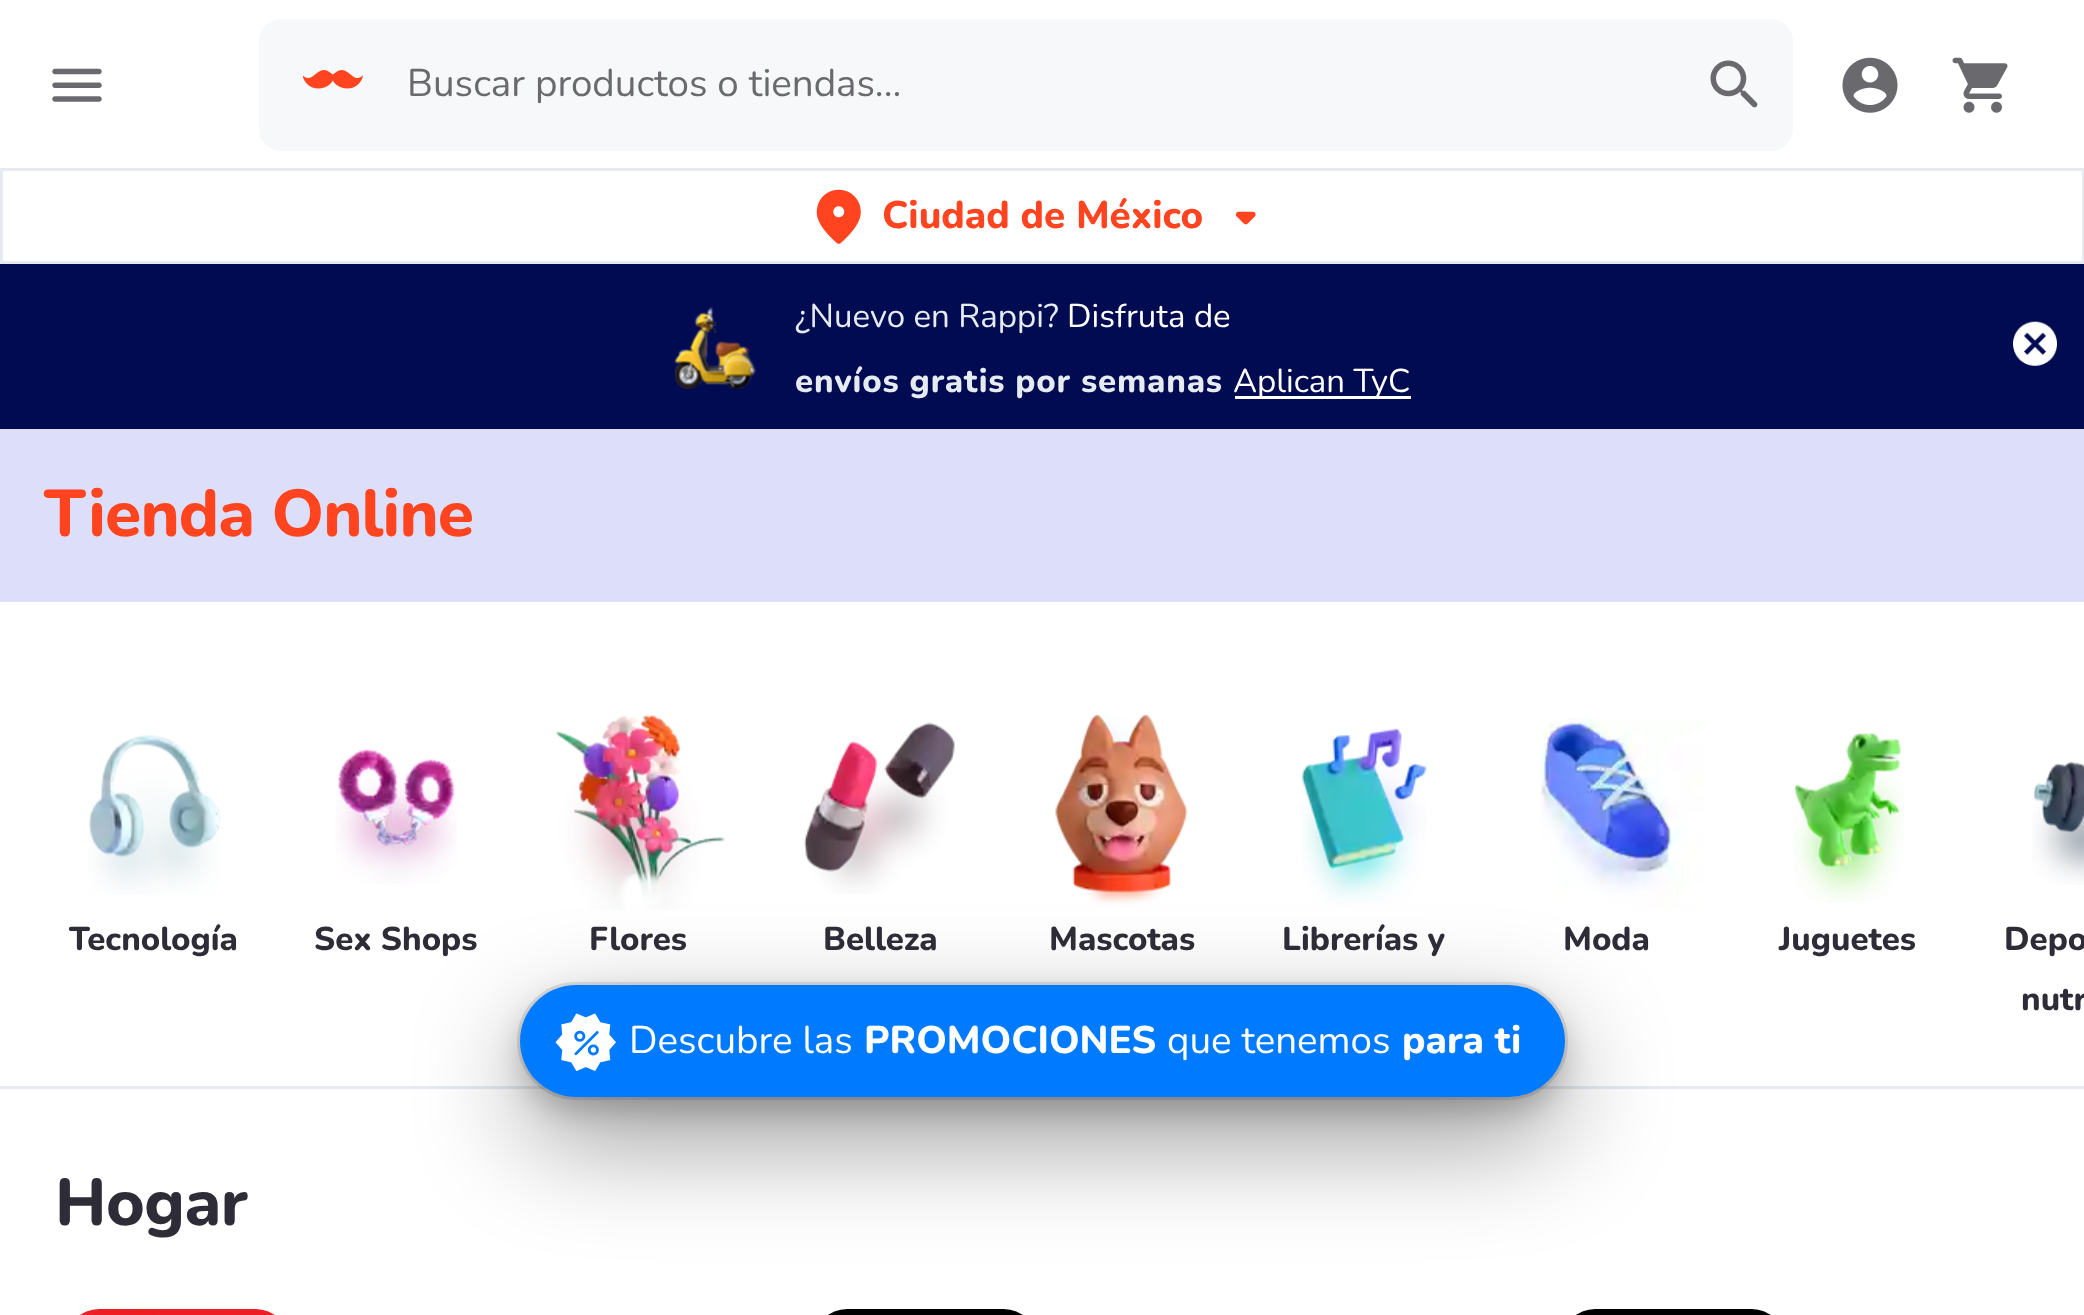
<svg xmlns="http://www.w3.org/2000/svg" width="2084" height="1315">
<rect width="100%" height="100%" fill="#fff"/>
<path d="M0 261v3h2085v-261h-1v258z" fill="#e6ebf1"/>
<image x="52" y="68" width="50" height="34" href="media/1.png"/>
<rect x="259" y="19" width="1534" height="132" rx="22" fill="#f7f8f9"/>
<image x="303" y="70" width="60" height="19" href="media/2.png"/>
<text x="407" y="96" style="font-family:Nunito;font-size:38.5px;fill:#6a696e">Buscar productos o tiendas...</text>
<image x="1710" y="60" width="48" height="48" href="media/3.png"/>
<image x="1842" y="57" width="56" height="56" href="media/4.png"/>
<image x="1952" y="57" width="56" height="56" href="media/5.png"/>
<rect y="168" width="2084" height="3" fill="#e6ebf1"/>
<rect x="2082" y="168" width="2" height="93" fill="#e6ebf1"/>
<rect y="168" width="3" height="93" fill="#e6ebf1"/>
<image x="816" y="189" width="45" height="55" href="media/6.png"/>
<text x="882" y="228" style="font-family:Nunito;font-size:38.5px;font-weight:800;fill:#ff441f">Ciudad de México</text>
<image x="1235" y="211" width="21" height="14" href="media/7.png"/>
<rect y="1086" width="2084" height="3" fill="#e6ebf1"/>
<image x="336" y="749" width="121" height="135" href="media/12.png"/>
<image x="555" y="714" width="170" height="196" href="media/13.png"/>
<image x="804" y="722" width="151" height="172" href="media/14.png"/>
<image x="1055" y="714" width="133" height="191" href="media/15.png"/>
<image x="1301" y="728" width="126" height="177" href="media/16.png"/>
<image x="1540" y="718" width="165" height="192" href="media/17.png"/>
<rect x="520" y="1026" width="1045" height="113" rx="56.5" fill="#00000066" filter="blur(55px)"/>
<rect x="520" y="998" width="1045" height="113" rx="56.5" fill="#00000033" filter="blur(14px)"/>
<rect x="518.5" y="983.5" width="1048" height="115" rx="57.5" fill="none" stroke="#0000001a" stroke-width="3"/>
<rect x="520" y="985" width="1045" height="112" rx="56" fill="#007aff"/>
<image x="555" y="1013" width="61" height="59" href="media/8.png"/>
<text x="629" y="1053" style="font-family:Nunito;font-size:38.5px;fill:#fff">Descubre las</text>
<text x="864" y="1053" style="font-family:Nunito;font-size:38.5px;font-weight:800;fill:#fff">PROMOCIONES</text>
<text x="1167" y="1053" style="font-family:Nunito;font-size:38.5px;fill:#fff">que tenemos</text>
<text x="1402" y="1053" style="font-family:Nunito;font-size:38.5px;font-weight:800;fill:#fff">para ti</text>
<rect y="264" width="2084" height="165" fill="#010b51"/>
<image x="674" y="307" width="82" height="83" href="media/9.png"/>
<text x="795" y="327" style="font-family:Nunito;font-size:33px;fill:#e6ebf1">¿Nuevo en Rappi?</text>
<text x="1067" y="327" style="font-family:Nunito;font-size:33px;fill:#fff">Disfruta de</text>
<text x="795" y="392" style="font-family:Nunito;font-size:33px;font-weight:800;letter-spacing:0.8px;fill:#e6ebf1">envíos gratis por semanas</text>
<rect x="1235" y="396" width="176" height="3" fill="#fff"/>
<text x="1233" y="392" style="font-family:Nunito;font-size:33px;fill:#fff">Aplican TyC</text>
<image x="2013" y="321" width="44" height="45" href="media/10.png"/>
<rect y="429" width="2084" height="173" fill="#dddffa"/>
<text x="44" y="536" style="font-family:Nunito;font-size:66px;font-weight:800;letter-spacing:-0.9px;fill:#ff441f">Tienda Online</text>
<image x="88" y="735" width="133" height="160" href="media/11.png"/>
<text x="69" y="950" style="font-family:Nunito;font-size:33px;font-weight:800;fill:#2e2c36">Tecnología</text>
<text x="314" y="950" style="font-family:Nunito;font-size:33px;font-weight:800;fill:#2e2c36">Sex Shops</text>
<text x="589" y="950" style="font-family:Nunito;font-size:33px;font-weight:800;fill:#2e2c36">Flores</text>
<text x="823" y="950" style="font-family:Nunito;font-size:33px;font-weight:800;fill:#2e2c36">Belleza</text>
<text x="1049" y="950" style="font-family:Nunito;font-size:33px;font-weight:800;fill:#2e2c36">Mascotas</text>
<text x="1282" y="950" style="font-family:Nunito;font-size:33px;font-weight:800;fill:#2e2c36">Librerías y</text>
<text x="1563" y="950" style="font-family:Nunito;font-size:33px;font-weight:800;fill:#2e2c36">Moda</text>
<image x="1793" y="733" width="111" height="170" href="media/18.png"/>
<text x="1779" y="950" style="font-family:Nunito;font-size:33px;font-weight:800;fill:#2e2c36">Juguetes</text>
<image x="2032" y="761" width="52" height="124" href="media/19.png"/>
<text x="2004" y="950" style="font-family:Nunito;font-size:33px;font-weight:800;fill:#2e2c36">Depo</text>
<text x="2021" y="1010" style="font-family:Nunito;font-size:33px;font-weight:800;fill:#2e2c36">nutr</text>
<text x="55" y="1225" style="font-family:Nunito;font-size:66px;font-weight:800;letter-spacing:-0.5px;fill:#2e2c36">Hogar</text>
<image x="80" y="1309" width="195" height="6" href="media/20.png"/>
<image x="828" y="1309" width="195" height="6" href="media/21.png"/>
<image x="1576" y="1309" width="195" height="6" href="media/21.png"/>
</svg>
